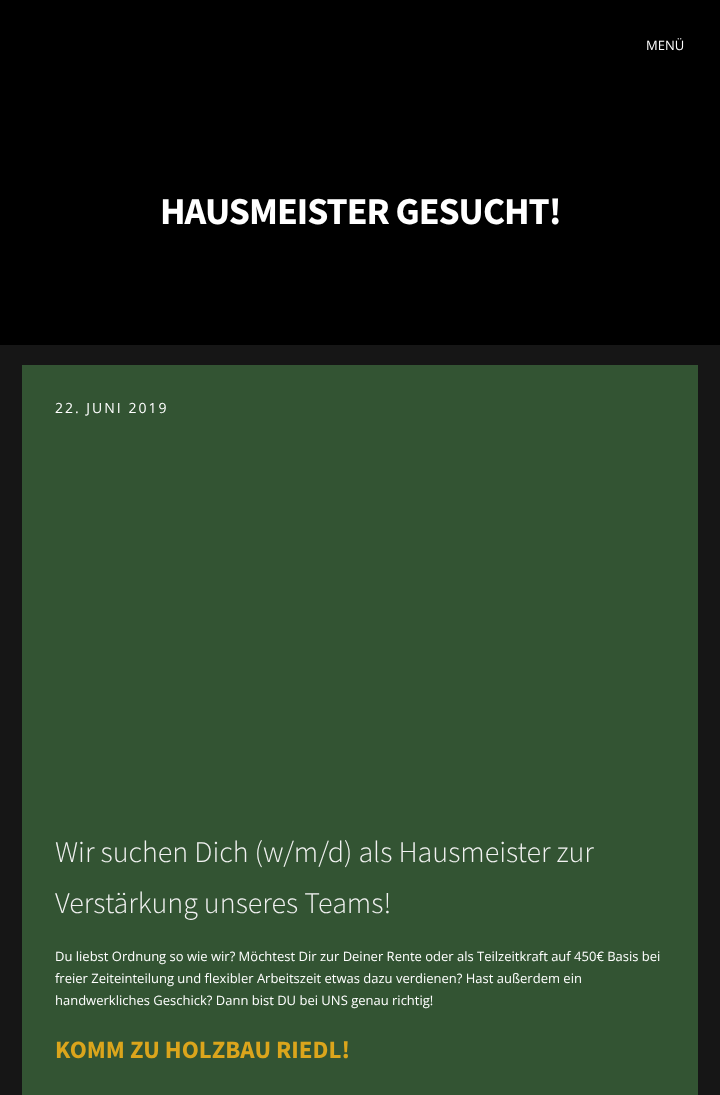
<svg xmlns="http://www.w3.org/2000/svg" width="720" height="1095">
<rect width="100%" height="100%" fill="#161616"/>
<rect width="720" height="345" fill="#000"/>
<text x="646" y="50" style="font-family:Open Sans;font-size:13px;fill:#fff">MENÜ</text>
<text x="160" y="224" style="font-family:Source Sans Pro;font-size:38px;font-weight:bold;letter-spacing:-1px;fill:#fff">HAUSMEISTER GESUCHT!</text>
<rect x="22" y="365" width="676" height="730" fill="#335433"/>
<text x="55" y="413" style="font-family:Open Sans;font-size:14px;letter-spacing:2px;fill:#fff">22. JUNI 2019</text>
<text x="55" y="862" style="font-family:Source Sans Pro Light;font-size:30px;font-weight:300;fill:#f2f2f2">Wir suchen Dich (w/m/d) als Hausmeister zur</text>
<text x="55" y="913" style="font-family:Source Sans Pro Light;font-size:30px;font-weight:300;fill:#f2f2f2">Verstärkung unseres Teams!</text>
<text x="55" y="961" style="font-family:Open Sans;font-size:13px;fill:#fff">Du liebst Ordnung so wie wir? Möchtest Dir zur Deiner Rente oder als Teilzeitkraft auf 450€ Basis bei</text>
<text x="55" y="983" style="font-family:Open Sans;font-size:13px;fill:#fff">freier Zeiteinteilung und flexibler Arbeitszeit etwas dazu verdienen? Hast außerdem ein</text>
<text x="55" y="1005" style="font-family:Open Sans;font-size:13px;fill:#fff">handwerkliches Geschick? Dann bist DU bei UNS genau richtig!</text>
<text x="55" y="1058" style="font-family:Source Sans Pro;font-size:25px;font-weight:bold;fill:#dba51c">KOMM ZU HOLZBAU RIEDL!</text>
</svg>
